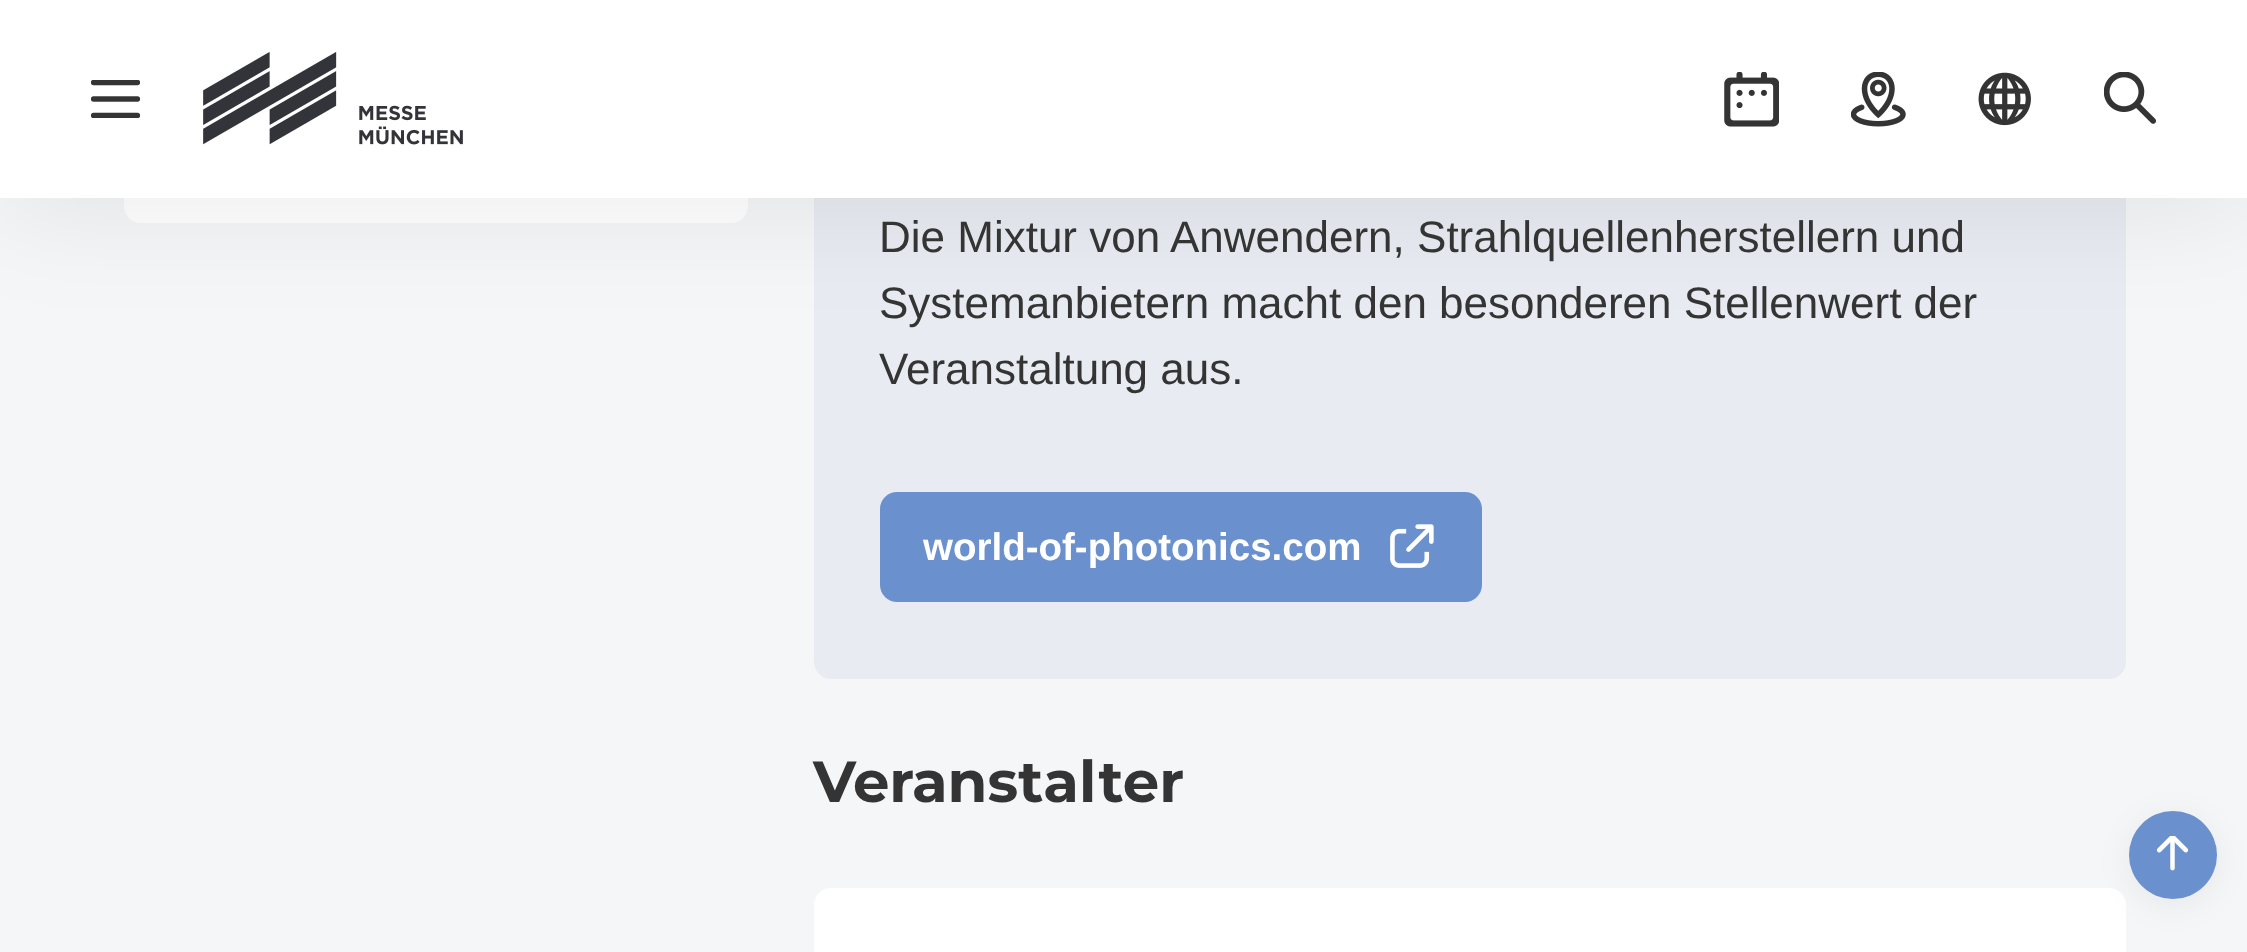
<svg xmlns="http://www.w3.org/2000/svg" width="2247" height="952">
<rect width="100%" height="100%" fill="#f5f6f8"/>
<rect x="124" y="-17" width="624" height="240" rx="17" fill="#fff"/>
<rect x="814" y="-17" width="1312" height="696" rx="17" fill="#e8ebf1"/>
<rect y="11" width="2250" height="198" fill="#00000014" filter="blur(55px)"/>
<rect width="2247" height="198" fill="#fff"/>
<image x="91" y="80" width="49" height="38" href="media/1.png"/>
<image x="203" y="52" width="260" height="93" href="media/2.png"/>
<image x="1724" y="72" width="55" height="55" href="media/3.png"/>
<image x="1851" y="72" width="55" height="55" href="media/4.png"/>
<image x="1978" y="72" width="53" height="54" href="media/5.png"/>
<image x="2104" y="72" width="52" height="52" href="media/6.png"/>
<text x="879" y="252" style="font-family:Liberation Sans;font-size:44px;fill:#343434">Die Mixtur von Anwendern, Strahlquellenherstellern und</text>
<text x="879" y="318" style="font-family:Liberation Sans;font-size:44px;fill:#343434">Systemanbietern macht den besonderen Stellenwert der</text>
<text x="879" y="384" style="font-family:Liberation Sans;font-size:44px;fill:#343434">Veranstaltung aus.</text>
<rect x="880" y="492" width="602" height="110" rx="17" fill="#6a91ce"/>
<text x="923" y="560" style="font-family:Liberation Sans;font-size:38.5px;font-weight:bold;fill:#fff">world-of-photonics.com</text>
<image x="1390" y="524" width="44" height="44" href="media/7.png"/>
<text x="813" y="802" style="font-family:Montserrat;font-size:57.75px;font-weight:100;fill:#343434">Veranstalter</text>
<rect x="814" y="888" width="1312" height="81" rx="17" fill="#fff"/>
<rect x="2129" y="817" width="88" height="88" rx="44" fill="#0000000f" filter="blur(16.5px)"/>
<circle cx="2173" cy="855" r="44" fill="#6a91ce"/>
<image x="2156" y="836" width="33" height="35" href="media/8.png"/>
</svg>
